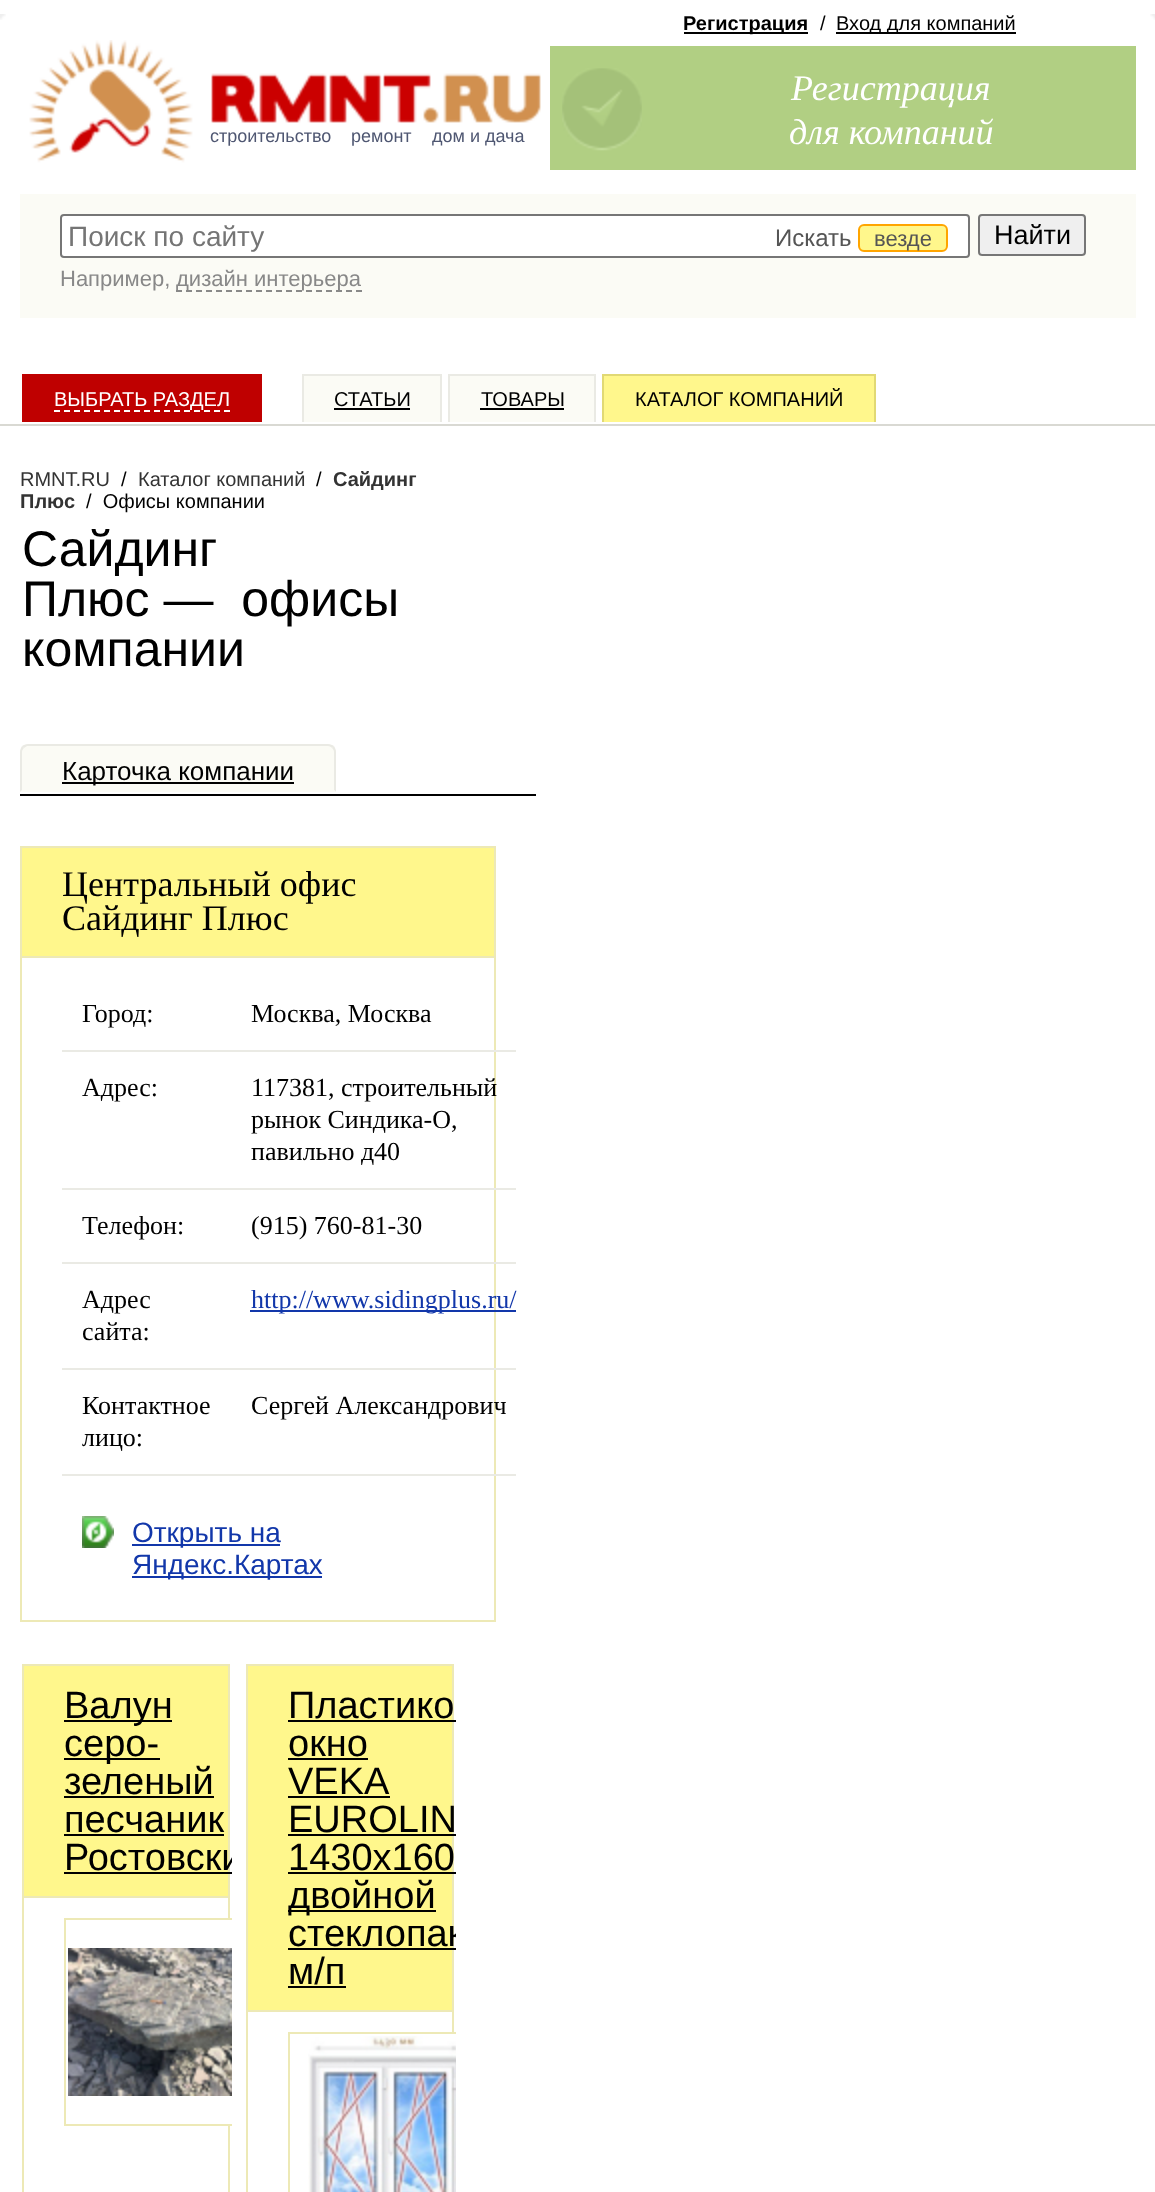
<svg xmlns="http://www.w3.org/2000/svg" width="1155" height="2192">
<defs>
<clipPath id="clip1"><rect x="20" y="1662" width="212" height="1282"/></clipPath>
<clipPath id="clip2"><rect x="244" y="1662" width="212" height="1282"/></clipPath>
</defs>
<rect width="100%" height="100%" fill="#fff"/>
<image x="0" y="14" width="6" height="6" href="media/1.png"/>
<image x="29" y="40" width="521" height="130" href="media/2.png"/>
<text x="210" y="142" style="font-family:Liberation Sans;font-size:18px;fill:#4f5772">строительство</text>
<text x="351" y="142" style="font-family:Liberation Sans;font-size:18px;fill:#4f5772">ремонт</text>
<text x="432" y="142" style="font-family:Liberation Sans;font-size:18px;fill:#4f5772">дом и дача</text>
<rect x="684" y="32" width="124" height="2" fill="#000"/>
<text x="683" y="30" style="font-family:Liberation Sans;font-size:20px;font-weight:bold;fill:#000">Регистрация</text>
<text x="820" y="30" style="font-family:Liberation Sans;font-size:20px;fill:#000">/</text>
<rect x="836" y="32" width="180" height="2" fill="#000"/>
<text x="836" y="30" style="font-family:Liberation Sans;font-size:20px;fill:#000">Вход для компаний</text>
<rect x="550" y="46" width="586" height="124" fill="#b1cf83"/>
<image x="562" y="68" width="80" height="83" href="media/3.png"/>
<text x="791" y="100" style="font-family:Liberation Serif;font-size:36px;font-style:italic;fill:#fff">Регистрация</text>
<text x="789" y="144" style="font-family:Liberation Serif;font-size:36px;font-style:italic;fill:#fff">для компаний</text>
<rect x="20" y="194" width="1116" height="124" fill="#fbfbf5"/>
<rect x="61" y="215" width="908" height="42" rx="3" fill="#fff" stroke="#767676" stroke-width="2"/>
<text x="68" y="246" style="font-family:Liberation Sans;font-size:28px;fill:#757575">Поиск по сайту</text>
<text x="775" y="246" style="font-family:Liberation Sans;font-size:24px;fill:#555">Искать</text>
<rect x="859" y="225" width="88" height="26" rx="5" fill="#fff78c" stroke="#ffa500" stroke-width="2"/>
<text x="874" y="246" style="font-family:Liberation Sans;font-size:22px;fill:#555">везде</text>
<rect x="979" y="215" width="106" height="40" rx="3" fill="#efefef" stroke="#767676" stroke-width="2"/>
<text x="994" y="244" style="font-family:Liberation Sans;font-size:27px;fill:#000">Найти</text>
<text x="60" y="286" style="font-family:Liberation Sans;font-size:22px;fill:#888">Например,</text>
<path d="M176 291h186" fill="none" stroke="#888" stroke-width="2" stroke-dasharray="6 4"/>
<text x="176" y="286" style="font-family:Liberation Sans;font-size:22px;fill:#888">дизайн интерьера</text>
<rect y="424" width="1155" height="2" fill="#d9d9d3"/>
<rect x="22" y="374" width="240" height="48" fill="#bf0000"/>
<path d="M54 411h176" fill="none" stroke="#fff" stroke-width="2" stroke-dasharray="6 4"/>
<text x="54" y="406" style="font-family:Liberation Sans;font-size:20px;fill:#fff">ВЫБРАТЬ РАЗДЕЛ</text>
<rect x="304" y="376" width="136" height="46" fill="#fbfbf5"/>
<rect x="302" y="374" width="140" height="2" fill="#eaeae4"/>
<rect x="440" y="374" width="2" height="48" fill="#eaeae4"/>
<rect x="302" y="374" width="2" height="48" fill="#eaeae4"/>
<text x="334" y="406" style="font-family:Liberation Sans;font-size:20px;fill:#000">СТАТЬИ</text>
<rect x="334" y="408" width="76" height="2" fill="#000"/>
<rect x="450" y="376" width="144" height="46" fill="#fbfbf5"/>
<rect x="448" y="374" width="148" height="2" fill="#eaeae4"/>
<rect x="594" y="374" width="2" height="48" fill="#eaeae4"/>
<rect x="448" y="374" width="2" height="48" fill="#eaeae4"/>
<text x="481" y="406" style="font-family:Liberation Sans;font-size:20px;fill:#000">ТОВАРЫ</text>
<rect x="480" y="408" width="84" height="2" fill="#000"/>
<rect x="604" y="376" width="270" height="46" fill="#fff78c"/>
<rect x="602" y="374" width="274" height="2" fill="#e1d974"/>
<rect x="874" y="374" width="2" height="48" fill="#e1d974"/>
<rect x="602" y="374" width="2" height="48" fill="#e1d974"/>
<text x="635" y="406" style="font-family:Liberation Sans;font-size:20px;fill:#000">КАТАЛОГ КОМПАНИЙ</text>
<text x="20" y="486" style="font-family:Liberation Sans;font-size:20px;fill:#333">RMNT.RU</text>
<text x="121" y="486" style="font-family:Liberation Sans;font-size:20px;fill:#000">/</text>
<text x="138" y="486" style="font-family:Liberation Sans;font-size:20px;fill:#333">Каталог компаний</text>
<text x="316" y="486" style="font-family:Liberation Sans;font-size:20px;fill:#000">/</text>
<text x="333" y="486" style="font-family:Liberation Sans;font-size:20px;font-weight:bold;fill:#333">Сайдинг</text>
<text x="20" y="508" style="font-family:Liberation Sans;font-size:20px;font-weight:bold;fill:#333">Плюс</text>
<text x="86" y="508" style="font-family:Liberation Sans;font-size:20px;fill:#000" xml:space="preserve">/  Офисы компании</text>
<text x="22" y="566" style="font-family:Liberation Sans;font-size:50px;fill:#000">Сайдинг</text>
<text x="22" y="616" style="font-family:Liberation Sans;font-size:50px;fill:#000" xml:space="preserve">Плюс —  офисы</text>
<text x="22" y="666" style="font-family:Liberation Sans;font-size:50px;fill:#000">компании</text>
<rect x="20" y="794" width="516" height="2" fill="#000"/>
<path d="M28 744h300c4.5 0 8 3.5 8 8v40h-316v-40c0-4.5 3.5-8 8-8z" fill="#fbfbf5"/>
<path d="M28 744c-2 0-4 1-6 2l2 2l3-2h301c2 0 3 1 4 2l2-2c-2-1-4-2-6-2z" fill="#eaeae4"/>
<path d="M336 792v-40c0-2-1-4-2-6l-2 2c1 1 2 2 2 4v38z" fill="#eaeae4"/>
<path d="M336 792l-2-2h-312l-2 2z" fill="#fbfbf5"/>
<path d="M20 792l2-2v-38c0-2 1-3 2-4l-2-2c-1 2-2 4-2 6z" fill="#eaeae4"/>
<rect x="62" y="782" width="232" height="2" fill="#000"/>
<text x="62" y="780" style="font-family:Liberation Sans;font-size:26px;fill:#000">Карточка компании</text>
<rect x="21" y="847" width="474" height="774" fill="none" stroke="#ede9b6" stroke-width="2"/>
<rect x="22" y="848" width="472" height="108" fill="#fff78c"/>
<rect x="22" y="956" width="472" height="2" fill="#ede9b6"/>
<text x="62" y="896" style="font-family:Liberation Serif;font-size:36px;fill:#000">Центральный офис</text>
<text x="62" y="930" style="font-family:Liberation Serif;font-size:36px;fill:#000">Сайдинг Плюс</text>
<rect x="62" y="1050" width="454" height="2" fill="#eaeae4"/>
<text x="82" y="1022" style="font-family:Liberation Serif;font-size:26px;fill:#000">Город:</text>
<text x="251" y="1022" style="font-family:Liberation Serif;font-size:26px;fill:#000">Москва, Москва</text>
<rect x="62" y="1188" width="454" height="2" fill="#eaeae4"/>
<text x="82" y="1096" style="font-family:Liberation Serif;font-size:26px;fill:#000">Адрес:</text>
<text x="251" y="1096" style="font-family:Liberation Serif;font-size:26px;fill:#000">117381, строительный</text>
<text x="251" y="1128" style="font-family:Liberation Serif;font-size:26px;fill:#000">рынок Синдика-О,</text>
<text x="251" y="1160" style="font-family:Liberation Serif;font-size:26px;fill:#000">павильно д40</text>
<rect x="62" y="1262" width="454" height="2" fill="#eaeae4"/>
<text x="82" y="1234" style="font-family:Liberation Serif;font-size:26px;fill:#000">Телефон:</text>
<text x="251" y="1234" style="font-family:Liberation Serif;font-size:26px;fill:#000">(915) 760-81-30</text>
<rect x="62" y="1368" width="454" height="2" fill="#eaeae4"/>
<text x="82" y="1308" style="font-family:Liberation Serif;font-size:26px;fill:#000">Адрес</text>
<text x="82" y="1340" style="font-family:Liberation Serif;font-size:26px;fill:#000">сайта:</text>
<rect x="250" y="1310" width="266" height="2" fill="#1237aa"/>
<text x="251" y="1308" style="font-family:Liberation Serif;font-size:26px;fill:#1237aa">http://www.sidingplus.ru/</text>
<rect x="62" y="1474" width="454" height="2" fill="#eaeae4"/>
<text x="82" y="1414" style="font-family:Liberation Serif;font-size:26px;fill:#000">Контактное</text>
<text x="82" y="1446" style="font-family:Liberation Serif;font-size:26px;fill:#000">лицо:</text>
<text x="251" y="1414" style="font-family:Liberation Serif;font-size:26px;fill:#000">Сергей Александрович</text>
<image x="82" y="1516" width="32" height="32" href="media/4.png"/>
<rect x="132" y="1544" width="148" height="2" fill="#1237aa"/>
<text x="132" y="1542" style="font-family:Liberation Sans;font-size:28px;fill:#1237aa">Открыть на</text>
<rect x="132" y="1576" width="190" height="2" fill="#1237aa"/>
<text x="132" y="1574" style="font-family:Liberation Sans;font-size:28px;fill:#1237aa">Яндекс.Картах</text>
<rect x="23" y="1665" width="206" height="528" fill="none" stroke="#ede9b6" stroke-width="2"/>
<rect x="24" y="1666" width="204" height="230" fill="#fff78c"/>
<rect x="24" y="1896" width="204" height="2" fill="#ede9b6"/>
<rect x="64" y="1720" width="108" height="2" fill="#000"/>
<text x="64" y="1718" style="font-family:Liberation Sans;font-size:38px;fill:#000">Валун</text>
<rect x="64" y="1758" width="96" height="2" fill="#000"/>
<text x="64" y="1756" style="font-family:Liberation Sans;font-size:38px;fill:#000">серо-</text>
<text x="64" y="1794" style="font-family:Liberation Sans;font-size:38px;fill:#000">зеленый</text>
<rect x="64" y="1796" width="150" height="2" fill="#000"/>
<text x="64" y="1832" style="font-family:Liberation Sans;font-size:38px;fill:#000">песчаник</text>
<rect x="64" y="1834" width="160" height="2" fill="#000"/>
<g clip-path="url(#clip1)">
<text x="64" y="1870" style="font-family:Liberation Sans;font-size:38px;fill:#000">Ростовски</text>
</g>
<rect x="64" y="1872" width="168" height="2" fill="#000"/>
<rect x="228" y="1920" width="2" height="204" fill="#fff"/>
<image x="68" y="1948" width="164" height="148" href="media/5.png"/>
<g clip-path="url(#clip1)">
<rect x="65" y="1919" width="206" height="206" fill="none" stroke="#ede9b6" stroke-width="2"/>
</g>
<rect x="247" y="1665" width="206" height="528" fill="none" stroke="#ede9b6" stroke-width="2"/>
<rect x="248" y="1666" width="204" height="344" fill="#fff78c"/>
<rect x="248" y="2010" width="204" height="2" fill="#ede9b6"/>
<text x="288" y="1718" style="font-family:Liberation Sans;font-size:38px;fill:#000">Пластико</text>
<rect x="288" y="1720" width="168" height="2" fill="#000"/>
<text x="288" y="1756" style="font-family:Liberation Sans;font-size:38px;fill:#000">окно</text>
<rect x="288" y="1758" width="80" height="2" fill="#000"/>
<text x="288" y="1794" style="font-family:Liberation Sans;font-size:38px;fill:#000">VEKA</text>
<rect x="288" y="1796" width="102" height="2" fill="#000"/>
<text x="288" y="1832" style="font-family:Liberation Sans;font-size:38px;fill:#000">EUROLIN</text>
<rect x="288" y="1834" width="168" height="2" fill="#000"/>
<text x="288" y="1870" style="font-family:Liberation Sans;font-size:38px;fill:#000">1430х160</text>
<rect x="288" y="1872" width="168" height="2" fill="#000"/>
<rect x="288" y="1910" width="148" height="2" fill="#000"/>
<text x="288" y="1908" style="font-family:Liberation Sans;font-size:38px;fill:#000">двойной</text>
<g clip-path="url(#clip2)">
<text x="288" y="1946" style="font-family:Liberation Sans;font-size:38px;fill:#000">стеклопак</text>
</g>
<rect x="288" y="1948" width="168" height="2" fill="#000"/>
<text x="288" y="1984" style="font-family:Liberation Sans;font-size:38px;fill:#000">м/п</text>
<rect x="288" y="1986" width="58" height="2" fill="#000"/>
<rect x="452" y="2034" width="2" height="158" fill="#fff"/>
<image x="308" y="2036" width="148" height="156" href="media/6.png"/>
<g clip-path="url(#clip2)">
<rect x="289" y="2033" width="206" height="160" fill="none" stroke="#ede9b6" stroke-width="2"/>
</g>
<image x="1150" y="14" width="5" height="6" href="media/7.png"/>
</svg>
